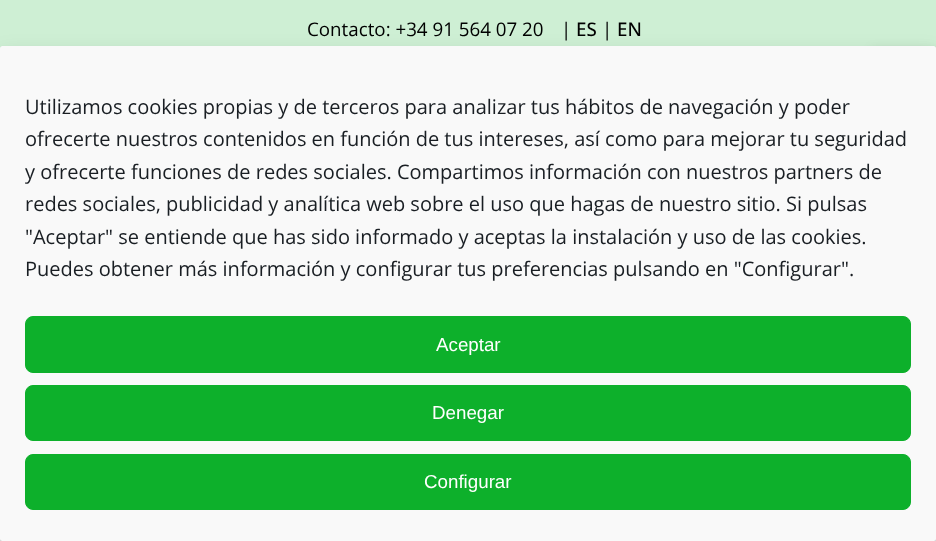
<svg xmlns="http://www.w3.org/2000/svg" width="936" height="541">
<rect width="100%" height="100%" fill="#fff"/>
<rect width="936" height="49" fill="#ceefd4"/>
<text x="307" y="36" style="font-family:Open Sans;font-size:18.75px;fill:#000">Contacto: +34 91 564 07 20</text>
<text x="561" y="36" style="font-family:Open Sans;font-size:18.75px;fill:#000">|</text>
<text x="576" y="36" style="font-family:Open Sans;font-size:18.75px;font-weight:500;fill:#000">ES</text>
<text x="602" y="36" style="font-family:Open Sans;font-size:18.75px;fill:#000">|</text>
<text x="617" y="36" style="font-family:Open Sans;font-size:18.75px;font-weight:500;fill:#000">EN</text>
<rect x="871" y="50" width="65" height="65" fill="#0000001a" filter="blur(6px)"/>
<rect y="54" width="936" height="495" rx="2.5" fill="#0000003b" filter="blur(4px)"/>
<rect y="59" width="936" height="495" rx="2.5" fill="#00000030" filter="blur(12.5px)"/>
<rect y="46" width="936" height="495" rx="2.5" fill="#f9f9f9"/>
<text x="25" y="114" style="font-family:Open Sans;font-size:20px;fill:#191e23">Utilizamos cookies propias y de terceros para analizar tus hábitos de navegación y poder</text>
<text x="25" y="146" style="font-family:Open Sans;font-size:20px;fill:#191e23">ofrecerte nuestros contenidos en función de tus intereses, así como para mejorar tu seguridad</text>
<text x="25" y="179" style="font-family:Open Sans;font-size:20px;fill:#191e23">y ofrecerte funciones de redes sociales. Compartimos información con nuestros partners de</text>
<text x="25" y="211" style="font-family:Open Sans;font-size:20px;fill:#191e23">redes sociales, publicidad y analítica web sobre el uso que hagas de nuestro sitio. Si pulsas</text>
<text x="25" y="244" style="font-family:Open Sans;font-size:20px;fill:#191e23">"Aceptar" se entiende que has sido informado y aceptas la instalación y uso de las cookies.</text>
<text x="25" y="276" style="font-family:Open Sans;font-size:20px;fill:#191e23">Puedes obtener más información y configurar tus preferencias pulsando en "Configurar".</text>
<rect x="25.5" y="316.5" width="885" height="56" rx="7.5" fill="#0db02b" stroke="#0db02b"/>
<text x="436" y="351" style="font-family:Liberation Sans;font-size:18.75px;fill:#fff">Aceptar</text>
<rect x="25.5" y="385.5" width="885" height="55" rx="7.5" fill="#0db02b" stroke="#0db02b"/>
<text x="432" y="419" style="font-family:Liberation Sans;font-size:18.75px;fill:#fff">Denegar</text>
<rect x="25.5" y="454.5" width="885" height="55" rx="7.5" fill="#0db02b" stroke="#0db02b"/>
<text x="424" y="488" style="font-family:Liberation Sans;font-size:18.75px;fill:#fff">Configurar</text>
</svg>
